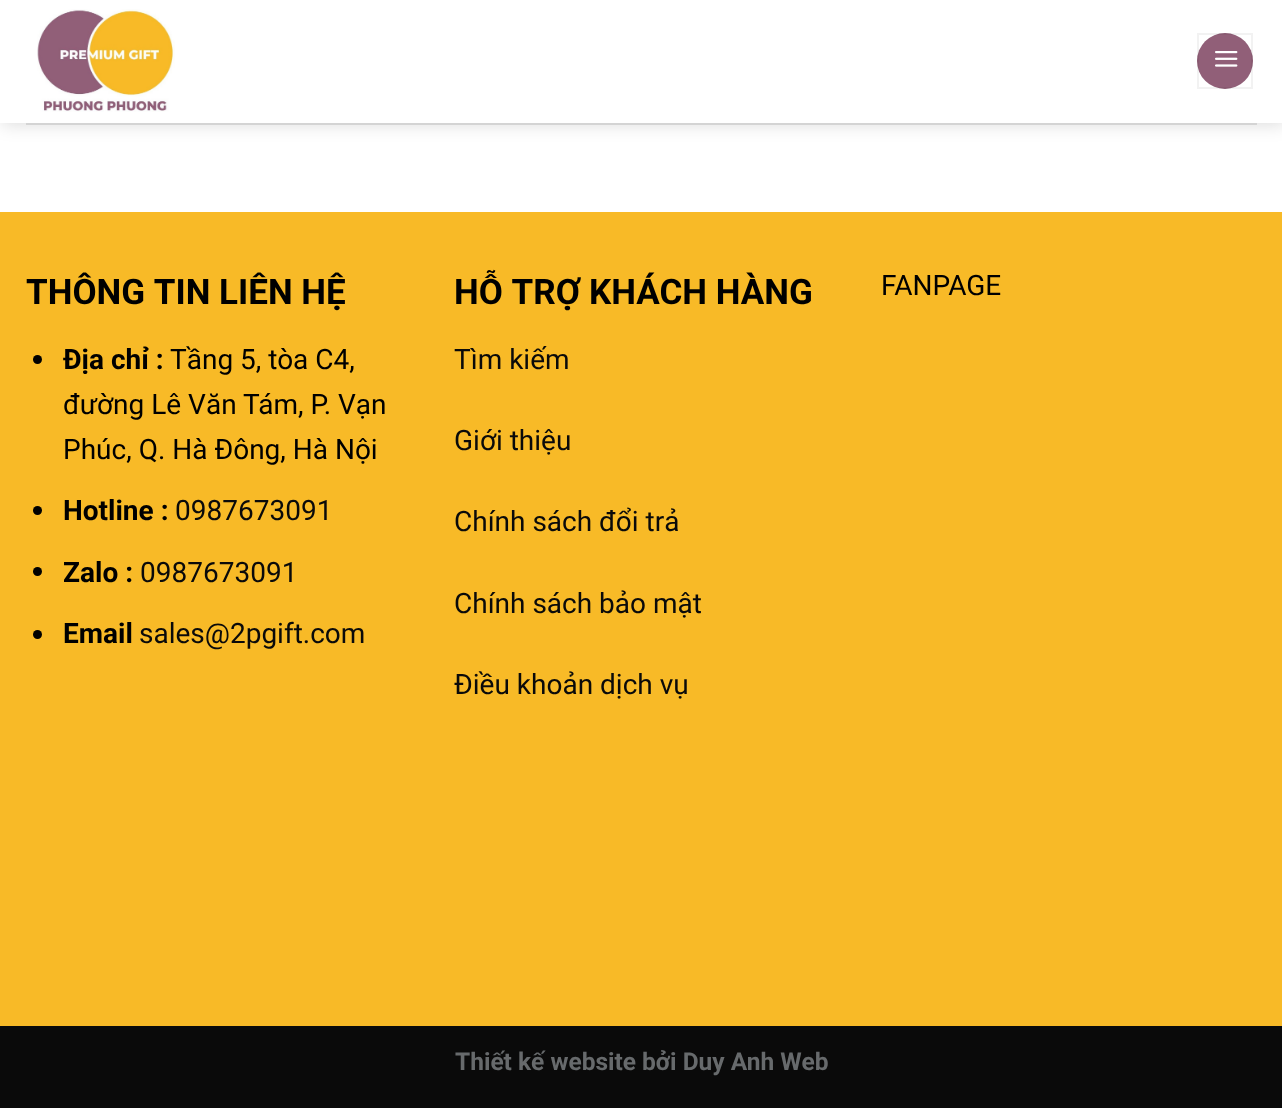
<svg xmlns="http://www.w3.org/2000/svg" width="1282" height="1108">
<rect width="100%" height="100%" fill="#fff"/>
<rect x="2" y="2" width="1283" height="122" fill="#00000026" filter="blur(9px)"/>
<rect width="1282" height="123" fill="#fff"/>
<image x="37" y="9" width="138" height="103" href="media/1.png"/>
<circle cx="1225" cy="61" r="28" fill="#915f78"/>
<rect x="1198" y="34" width="54" height="54" fill="none" stroke="#0000000d" stroke-width="2"/>
<image x="1215" y="51" width="23" height="16" href="media/2.png"/>
<rect x="26" y="123" width="1231" height="2" fill="#d4d4d4"/>
<rect y="212" width="1282" height="814" fill="#f8ba27"/>
<text x="26" y="304" style="font-family:Roboto;font-size:35px;font-weight:bold;fill:#000">THÔNG TIN LIÊN HỆ</text>
<circle cx="37.5" cy="359.5" r="4.5" fill="#000"/>
<text x="63" y="369" style="font-family:Roboto;font-size:28px;font-weight:bold;fill:#000">Địa chỉ :</text>
<text x="170" y="369" style="font-family:Roboto;font-size:28px;fill:#000">Tầng 5, tòa C4,</text>
<text x="63" y="414" style="font-family:Roboto;font-size:28px;fill:#000">đường Lê Văn Tám, P. Vạn</text>
<text x="63" y="459" style="font-family:Roboto;font-size:28px;fill:#000">Phúc, Q. Hà Đông, Hà Nội</text>
<circle cx="37.5" cy="510.5" r="4.5" fill="#000"/>
<text x="63" y="520" style="font-family:Roboto;font-size:28px;font-weight:bold;fill:#000">Hotline :</text>
<text x="175" y="520" style="font-family:Roboto;font-size:28px;fill:#0a0a0a">0987673091</text>
<circle cx="37.5" cy="571.5" r="4.5" fill="#000"/>
<text x="63" y="582" style="font-family:Roboto;font-size:28px;font-weight:bold;fill:#000">Zalo :</text>
<text x="140" y="582" style="font-family:Roboto;font-size:28px;fill:#0a0a0a">0987673091</text>
<circle cx="37.5" cy="634.5" r="4.5" fill="#000"/>
<text x="63" y="643" style="font-family:Roboto;font-size:28px;font-weight:bold;fill:#000">Email</text>
<text x="139" y="643" style="font-family:Roboto;font-size:28px;fill:#0a0a0a">sales@2pgift.com</text>
<text x="454" y="304" style="font-family:Roboto;font-size:35px;font-weight:bold;fill:#000">HỖ TRỢ KHÁCH HÀNG</text>
<text x="454" y="369" style="font-family:Roboto;font-size:28px;fill:#0a0a0a">Tìm kiếm</text>
<text x="454" y="450" style="font-family:Roboto;font-size:28px;fill:#0a0a0a">Giới thiệu</text>
<text x="454" y="531" style="font-family:Roboto;font-size:28px;fill:#0a0a0a">Chính sách đổi trả</text>
<text x="454" y="613" style="font-family:Roboto;font-size:28px;fill:#0a0a0a">Chính sách bảo mật</text>
<text x="454" y="694" style="font-family:Roboto;font-size:28px;fill:#0a0a0a">Điều khoản dịch vụ</text>
<text x="881" y="295" style="font-family:Roboto;font-size:28px;fill:#000">FANPAGE</text>
<rect y="1026" width="1282" height="82" fill="#0a0a0a"/>
<text x="455" y="1070" style="font-family:Roboto;font-size:24.5px;font-weight:bold;fill:#676a6c">Thiết kế website bởi Duy Anh Web</text>
</svg>
